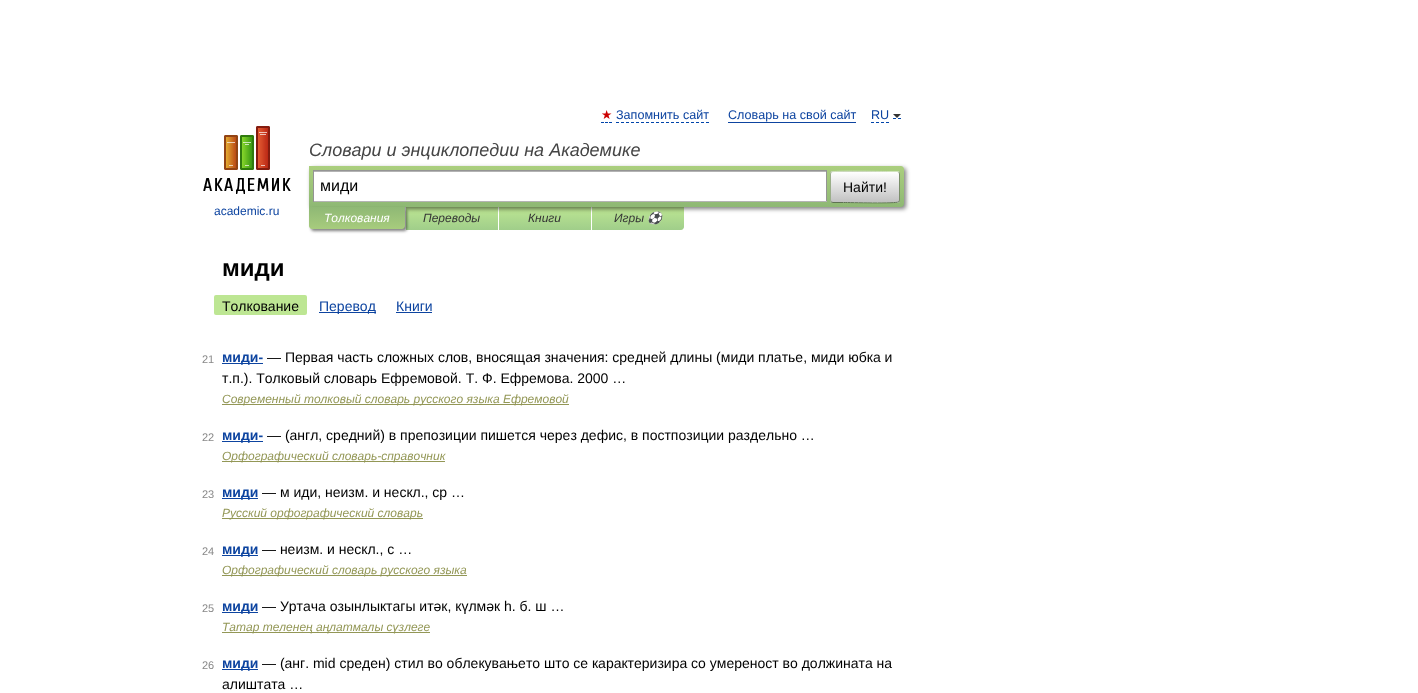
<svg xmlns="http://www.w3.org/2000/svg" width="1418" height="693">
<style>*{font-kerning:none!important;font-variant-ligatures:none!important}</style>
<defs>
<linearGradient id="g1" gradientUnits="userSpaceOnUse" x1="452" y1="207" x2="452" y2="230"><stop offset="0" stop-color="#bde693"/><stop offset="1" stop-color="#a0ce8a"/></linearGradient>
<linearGradient id="g2" gradientUnits="userSpaceOnUse" x1="545" y1="207" x2="545" y2="230"><stop offset="0" stop-color="#bde693"/><stop offset="1" stop-color="#a0ce8a"/></linearGradient>
<linearGradient id="g3" gradientUnits="userSpaceOnUse" x1="638" y1="207" x2="638" y2="230"><stop offset="0" stop-color="#bde693"/><stop offset="1" stop-color="#a0ce8a"/></linearGradient>
<linearGradient id="g4" gradientUnits="userSpaceOnUse" x1="607" y1="166" x2="607" y2="207"><stop offset="0" stop-color="#abcf7e"/><stop offset="1" stop-color="#8eb874"/></linearGradient>
<clipPath id="clip1"><rect x="830" y="171" width="70" height="32" rx="3"/></clipPath>
<linearGradient id="g5" gradientUnits="userSpaceOnUse" x1="865" y1="142" x2="865" y2="172"><stop offset="0" stop-color="#fff"/><stop offset="1" stop-color="#c1c1c1"/></linearGradient>
<linearGradient id="g6" gradientUnits="userSpaceOnUse" x1="865" y1="172" x2="865" y2="202"><stop offset="0" stop-color="#fff"/><stop offset="1" stop-color="#c1c1c1"/></linearGradient>
<linearGradient id="g7" gradientUnits="userSpaceOnUse" x1="865" y1="202" x2="865" y2="232"><stop offset="0" stop-color="#fff"/><stop offset="1" stop-color="#c1c1c1"/></linearGradient>
<linearGradient id="g8" gradientUnits="userSpaceOnUse" x1="357" y1="207" x2="357" y2="229"><stop offset="0" stop-color="#8fb875"/><stop offset="1" stop-color="#a7cc7d"/></linearGradient>
</defs>
<rect width="100%" height="100%" fill="#fff"/>
<text x="601" y="119" style="font-family:DejaVu Sans;font-size:12.6px;fill:#c00">★</text>
<path d="M601 122.5h3m1 0h3m1 0h3" fill="none" stroke="#04a"/>
<text x="616" y="119" style="font-family:Liberation Sans;font-size:12.6px;fill:#0d44a0">Запомнить сайт</text>
<path d="M616 122.5h93" fill="none" stroke="#04a" stroke-dasharray="3 2"/>
<text x="728" y="119" style="font-family:Liberation Sans;font-size:12.6px;fill:#0d44a0">Словарь на свой сайт</text>
<rect x="728" y="122" width="128" height="1" fill="#0d44a0"/>
<path d="M871 122.5h18" fill="none" stroke="#04a" stroke-dasharray="3 2"/>
<path d="M893 118.5h3m2 0h3" fill="none" stroke="#04a"/>
<text x="871" y="119" style="font-family:Liberation Sans;font-size:12.6px;fill:#0d44a0">RU</text>
<path d="M893 114h8l-4 4z" fill="#333"/>
<text x="309" y="156" style="font-family:Liberation Sans;font-size:18px;font-style:italic;fill:#454545">Словари и энциклопедии на Академике</text>
<rect x="406" y="207" width="92" height="23" fill="url(#g1)"/>
<rect x="499" y="207" width="92" height="23" fill="url(#g2)"/>
<path d="M592 207h92v20c0 1.5-1.5 3-3 3h-89z" fill="url(#g3)"/>
<rect x="311" y="168" width="595" height="41" rx="3" fill="#00000080" filter="blur(2px)"/>
<path d="M309 166h592c1.5 0 3 1.5 3 3v35c0 1.5-1.5 3-3 3h-592z" fill="url(#g4)"/>
<rect x="314" y="172" width="512" height="29" fill="#fff"/>
<rect x="314" y="171" width="512" height="1" fill="#b3b3b3"/>
<rect x="313" y="170" width="514" height="1" fill="#949494"/>
<rect x="826" y="170" width="1" height="32" fill="#949494"/>
<rect x="313" y="201" width="514" height="1" fill="#b4b4b4"/>
<rect x="313" y="170" width="1" height="32" fill="#949494"/>
<text x="320" y="191" style="font-family:Liberation Sans;font-size:16px;fill:#000">миди</text>
<g clip-path="url(#clip1)">
<rect x="830" y="171" width="70" height="1" fill="url(#g5)"/>
<rect x="830" y="172" width="70" height="30" fill="url(#g6)"/>
<rect x="830" y="202" width="70" height="1" fill="url(#g7)"/>
</g>
<path d="M831 172h.5c2-1.5 48.5-.5 55-.5h10.5l2 .5" fill="none" stroke="#d1e4bc"/>
<path d="M899 172c0 .5 .5 1.5 .5 2v26c0 .5-.5 1.5-.5 2" fill="none" stroke="#7a8e69"/>
<path d="M899 202h-.5c-2 1.5-48.5 .5-55 .5h-10.5l-2-.5" fill="none" stroke="#5d7250"/>
<path d="M831 202c0-.5-.5-1.5-.5-2v-26c0-.5 .5-1.5 .5-2" fill="none" stroke="#9aae89"/>
<text x="843" y="192" style="font-family:Liberation Sans;font-size:14px;fill:#000">Найти!</text>
<image x="203" y="126" width="88" height="68" href="media/1.png"/>
<text x="214" y="215" style="font-family:Liberation Sans;font-size:12px;fill:#0d44a0">academic.ru</text>
<rect x="311" y="209" width="96" height="22" rx="3" fill="#00000080" filter="blur(1.5px)"/>
<path d="M309 207h96v19c0 1.5-1.5 3-3 3h-90c-1.5 0-3-1.5-3-3z" fill="url(#g8)"/>
<text x="324" y="222" style="font-family:Liberation Sans;font-size:12px;font-style:italic;fill:#fff">Толкования</text>
<text x="423" y="222" style="font-family:Liberation Sans;font-size:12px;font-style:italic;fill:#353535">Переводы</text>
<text x="528" y="222" style="font-family:Liberation Sans;font-size:12px;font-style:italic;fill:#353535">Книги</text>
<text x="614" y="222" style="font-family:Liberation Sans;font-size:12px;font-style:italic;fill:#353535">Игры</text>
<text x="647" y="222" style="font-family:Noto Color Emoji;font-size:12px;font-style:italic;fill:#353535">⚽</text>
<text x="222" y="276" style="font-family:Liberation Sans;font-size:24px;font-weight:bold;fill:#000">миди</text>
<rect x="214" y="295" width="93" height="20" rx="2" fill="#bde693"/>
<text x="222" y="311" style="font-family:Liberation Sans;font-size:14px;fill:#000">Толкование</text>
<rect x="319" y="312" width="57" height="1" fill="#0d44a0"/>
<text x="319" y="311" style="font-family:Liberation Sans;font-size:14px;fill:#0d44a0">Перевод</text>
<text x="396" y="311" style="font-family:Liberation Sans;font-size:14px;fill:#0d44a0">Книги</text>
<rect x="396" y="312" width="36" height="1" fill="#0d44a0"/>
<text x="202" y="363" style="font-family:Liberation Sans;font-size:11px;fill:#898989">21</text>
<rect x="222" y="363" width="41" height="1" fill="#0d44a0"/>
<text x="222" y="362" style="font-family:Liberation Sans;font-size:14px;font-weight:bold;fill:#0d44a0">миди-</text>
<text x="267" y="362" style="font-family:Liberation Sans;font-size:14px;fill:#000">— Первая часть сложных слов, вносящая значения: средней длины (миди платье, миди юбка и</text>
<text x="222" y="383" style="font-family:Liberation Sans;font-size:14px;fill:#000">т.п.). Толковый словарь Ефремовой. Т.</text>
<text x="482" y="383" style="font-family:Liberation Sans;font-size:14px;fill:#000">Ф. Ефремова. 2000 …</text>
<rect x="222" y="404" width="347" height="1" fill="#939756"/>
<text x="222" y="403" style="font-family:Liberation Sans;font-size:12px;font-style:italic;fill:#939756">Современный толковый словарь русского языка Ефремовой</text>
<text x="202" y="441" style="font-family:Liberation Sans;font-size:11px;fill:#898989">22</text>
<rect x="222" y="441" width="41" height="1" fill="#0d44a0"/>
<text x="222" y="440" style="font-family:Liberation Sans;font-size:14px;font-weight:bold;fill:#0d44a0">миди-</text>
<text x="267" y="440" style="font-family:Liberation Sans;font-size:14px;fill:#000">— (англ, средний) в препозиции пишется через дефис, в постпозиции раздельно …</text>
<rect x="222" y="461" width="223" height="1" fill="#939756"/>
<text x="222" y="460" style="font-family:Liberation Sans;font-size:12px;font-style:italic;fill:#939756">Орфографический словарь-справочник</text>
<text x="202" y="498" style="font-family:Liberation Sans;font-size:11px;fill:#898989">23</text>
<rect x="222" y="498" width="36" height="1" fill="#0d44a0"/>
<text x="222" y="497" style="font-family:Liberation Sans;font-size:14px;font-weight:bold;fill:#0d44a0">миди</text>
<text x="262" y="497" style="font-family:Liberation Sans;font-size:14px;fill:#000">— м иди, неизм. и нескл., ср …</text>
<rect x="222" y="518" width="201" height="1" fill="#939756"/>
<text x="222" y="517" style="font-family:Liberation Sans;font-size:12px;font-style:italic;fill:#939756">Русский орфографический словарь</text>
<text x="202" y="555" style="font-family:Liberation Sans;font-size:11px;fill:#898989">24</text>
<rect x="222" y="555" width="36" height="1" fill="#0d44a0"/>
<text x="222" y="554" style="font-family:Liberation Sans;font-size:14px;font-weight:bold;fill:#0d44a0">миди</text>
<text x="262" y="554" style="font-family:Liberation Sans;font-size:14px;fill:#000">— неизм. и нескл., с …</text>
<rect x="222" y="575" width="245" height="1" fill="#939756"/>
<text x="222" y="574" style="font-family:Liberation Sans;font-size:12px;font-style:italic;fill:#939756">Орфографический словарь русского языка</text>
<text x="202" y="612" style="font-family:Liberation Sans;font-size:11px;fill:#898989">25</text>
<rect x="222" y="612" width="36" height="1" fill="#0d44a0"/>
<text x="222" y="611" style="font-family:Liberation Sans;font-size:14px;font-weight:bold;fill:#0d44a0">миди</text>
<text x="262" y="611" style="font-family:Liberation Sans;font-size:14px;fill:#000">— Уртача озынлыктагы итәк, күлмәк һ. б. ш …</text>
<rect x="222" y="632" width="208" height="1" fill="#939756"/>
<text x="222" y="631" style="font-family:Liberation Sans;font-size:12px;font-style:italic;fill:#939756">Татар теленең аңлатмалы сүзлеге</text>
<text x="202" y="669" style="font-family:Liberation Sans;font-size:11px;fill:#898989">26</text>
<rect x="222" y="669" width="36" height="1" fill="#0d44a0"/>
<text x="222" y="668" style="font-family:Liberation Sans;font-size:14px;font-weight:bold;fill:#0d44a0">миди</text>
<text x="262" y="668" style="font-family:Liberation Sans;font-size:14px;fill:#000">— (анг. mid среден) стил во облекувањето</text>
<text x="544" y="668" style="font-family:Liberation Sans;font-size:14px;fill:#000">што се карактеризира со умереност во должината на</text>
<text x="222" y="689" style="font-family:Liberation Sans;font-size:14px;fill:#000">алиштата …</text>
</svg>
